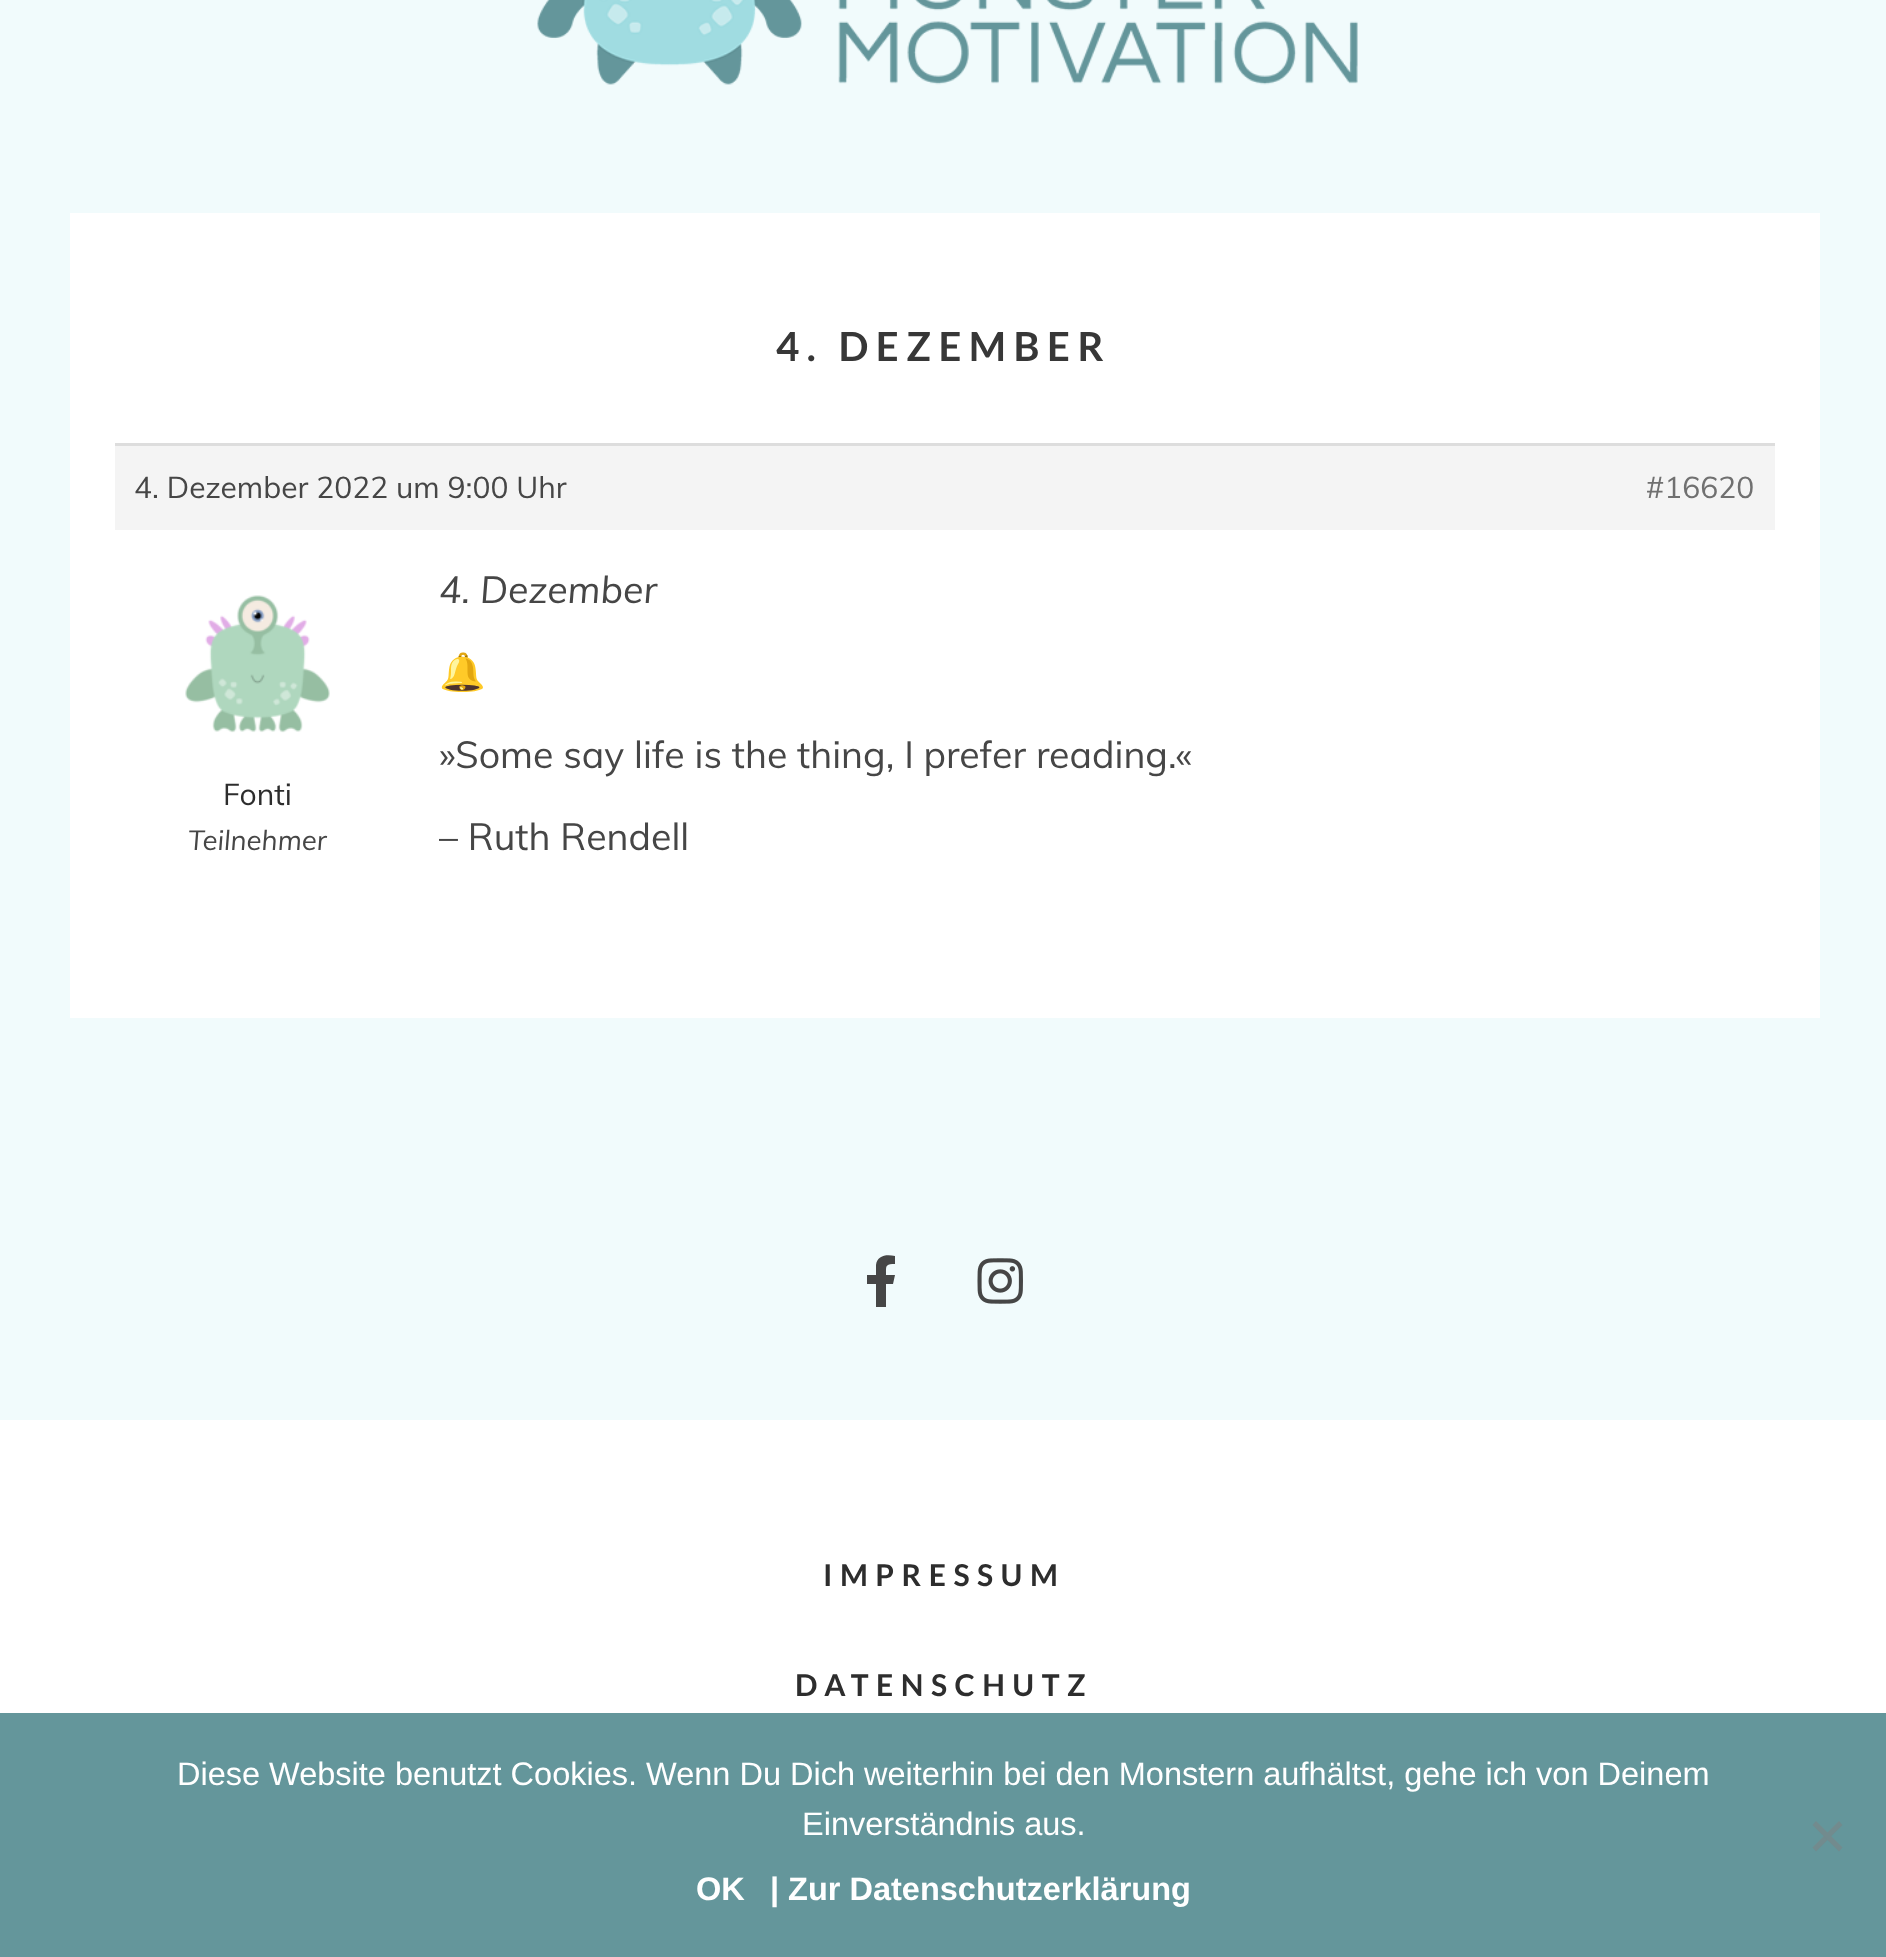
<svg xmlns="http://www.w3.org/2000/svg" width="1886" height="1957">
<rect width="100%" height="100%" fill="#f1fbfc"/>
<image x="537" y="0" width="821" height="85" href="media/1.png"/>
<rect x="70" y="213" width="1750" height="805" fill="#fff"/>
<text x="776" y="361" style="font-family:Lato;font-size:40px;font-weight:bold;letter-spacing:7.5px;fill:#373737">4. DEZEMBER</text>
<rect x="115" y="446" width="1660" height="84" fill="#f4f4f4"/>
<rect x="115" y="443" width="1660" height="3" fill="#ddd"/>
<text x="134" y="498" style="font-family:Muli;font-size:30px;fill:#464646">4. Dezember 2022 um 9:00 Uhr</text>
<text x="1646" y="498" style="font-family:Muli;font-size:30px;fill:#707070">#16620</text>
<image x="185" y="595" width="145" height="138" href="media/2.png"/>
<text x="223" y="805" style="font-family:Muli;font-size:30px;fill:#2d2d2d">Fonti</text>
<text x="188" y="850" style="font-family:Muli;font-size:27.5px;font-style:italic;fill:#464646">Teilnehmer</text>
<text x="439" y="603" style="font-family:Muli;font-size:37.5px;font-style:italic;fill:#464646">4. Dezember</text>
<text x="439" y="685" style="font-family:Noto Color Emoji;font-size:37.5px;fill:#464646">🔔</text>
<text x="439" y="768" style="font-family:Muli;font-size:37.5px;fill:#464646">»Some say life is the thing, I prefer reading.«</text>
<text x="439" y="850" style="font-family:Muli;font-size:37.5px;fill:#464646">– Ruth Rendell</text>
<path d="M893 1284l2-9h-9c0-9-1-11 9-11v-8c-8-2-18-1-19 9v10h-9v9h9v23h10v-23z" fill="#464646"/>
<image x="977" y="1258" width="46" height="46" href="media/3.png"/>
<rect y="1420" width="1886" height="293" fill="#fff"/>
<text x="823" y="1586" style="font-family:Lato;font-size:30px;font-weight:bold;letter-spacing:7.5px;fill:#2d2d2d">IMPRESSUM</text>
<text x="795" y="1696" style="font-family:Lato;font-size:30px;font-weight:bold;letter-spacing:7.5px;fill:#2d2d2d">DATENSCHUTZ</text>
<rect y="1713" width="1886" height="244" fill="#64969b"/>
<text x="177" y="1785" style="font-family:Liberation Sans;font-size:32.5px;fill:#fff">Diese Website benutzt Cookies. Wenn Du Dich weiterhin bei den Monstern aufhältst, gehe ich von Deinem</text>
<text x="802" y="1835" style="font-family:Liberation Sans;font-size:32.5px;fill:#fff">Einverständnis aus.</text>
<path d="M1839 1821l3.5 4l-26.5 26.5l-3.5-4z" fill="#728b8e"/>
<path d="M1812.5 1825l3.5-4l26.5 26.5l-3.5 4z" fill="#728b8e"/>
<text x="696" y="1900" style="font-family:Liberation Sans;font-size:32.5px;font-weight:bold;fill:#fff">OK</text>
<text x="770" y="1900" style="font-family:Liberation Sans;font-size:32.5px;font-weight:bold;fill:#fff">| Zur Datenschutzerklärung</text>
</svg>
